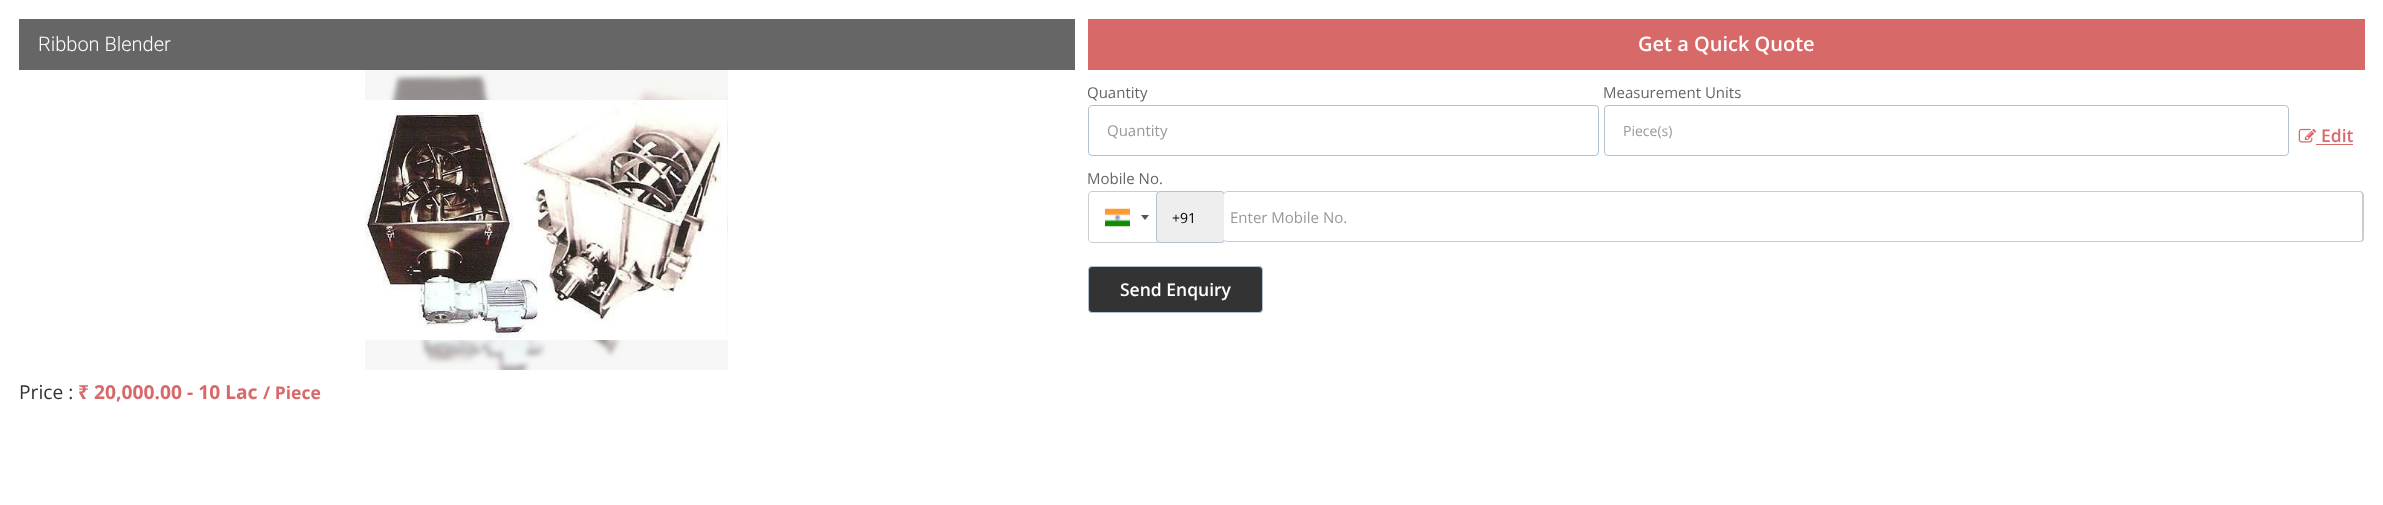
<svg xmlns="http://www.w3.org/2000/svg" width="2383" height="505">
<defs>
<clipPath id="clip1"><rect x="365" y="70" width="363" height="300"/></clipPath>
</defs>
<rect width="100%" height="100%" fill="#fff"/>
<rect x="365" y="70" width="6" height="300" fill="#f7f7f7"/>
<rect x="19" y="19" width="1056" height="51" fill="#666"/>
<text x="38" y="51" style="font-family:Roboto;font-size:20px;font-weight:300;fill:#fff">Ribbon Blender</text>
<text x="19" y="399" style="font-family:Open Sans;font-size:19.25px;fill:#333">Price :</text>
<text x="78" y="399" style="font-family:Noto Sans;font-size:19.25px;font-weight:bold;fill:#d86969">₹ 20,000.00 - 10 Lac</text>
<text x="263" y="399" style="font-family:Open Sans;font-size:17.5px;font-weight:bold;fill:#d86969">/ Piece</text>
<image x="365" y="89" width="6" height="11" href="media/3.png"/>
<image x="365" y="70" width="363" height="300" href="media/1.png"/>
<g clip-path="url(#clip1)">
<rect x="365" y="58" width="375" height="325" fill="#f7f7f780" filter="blur(2.5px)"/>
</g>
<image x="727" y="102" width="1" height="142" href="media/4.png"/>
<image x="365" y="100" width="363" height="240" href="media/2.png"/>
<rect x="1088" y="19" width="1277" height="51" fill="#d86969"/>
<text x="1638" y="51" style="font-family:Open Sans;font-size:20px;font-weight:600;fill:#fff">Get a Quick Quote</text>
<text x="1087" y="98" style="font-family:Open Sans;font-size:15px;fill:#666">Quantity</text>
<rect x="1088.5" y="105.5" width="510" height="50" rx="3.5" fill="none" stroke="#b2c1cf"/>
<text x="1107" y="136" style="font-family:Open Sans;font-size:15px;fill:#999">Quantity</text>
<text x="1603" y="98" style="font-family:Open Sans;font-size:15px;fill:#666">Measurement Units</text>
<rect x="1604.5" y="105.5" width="684" height="50" rx="3.5" fill="none" stroke="#b2c1cf"/>
<text x="1623" y="136" style="font-family:Open Sans;font-size:14px;fill:#999">Piece(s)</text>
<image x="2298" y="128" width="18" height="15" href="media/5.png"/>
<text x="2321" y="142" style="font-family:Open Sans;font-size:17.5px;font-weight:600;fill:#d86969">Edit</text>
<rect x="2316" y="144" width="37" height="1" fill="#d86969"/>
<text x="1087" y="184" style="font-family:Open Sans;font-size:15px;fill:#666">Mobile No.</text>
<path d="M1092 191.5h65.5v51h-65.5c-2 0-3.5-1.5-3.5-3.5v-44c0-2 1.5-3.5 3.5-3.5z" fill="none" stroke="#ccc"/>
<rect x="1105" y="209" width="25" height="17" fill="#888" filter="blur(0.5px)"/>
<image x="1105" y="208" width="25" height="19" href="media/6.png"/>
<path d="M1141 215h8l-4 5z" fill="#555"/>
<rect x="1156.5" y="191.5" width="68" height="51" rx="3.5" fill="#eee" stroke="#b2c1cf"/>
<text x="1172" y="223" style="font-family:Open Sans;font-size:14px;fill:#000">+91</text>
<path d="M1228 192h1132c1 0 2 2 2 3v44c0 1-1 2-2 2h-1132c-3 0-4-1-4-2v-44c0-1 1-3 4-3z" fill="#fff"/>
<path d="M1228 191h1132c2 0 4 2 4 4v44c0 2-2 3-4 3h-1132c-3 0-4-1-4-3v-44c0-2 1-4 4-4zm0 1h1132c1 0 2 2 2 3v44c0 1-1 2-2 2h-1132c-3 0-4-1-4-2v-44c0-1 1-3 4-3z" fill="#ccc" fill-rule="evenodd"/>
<text x="1230" y="223" style="font-family:Open Sans;font-size:15px;fill:#999">Enter Mobile No.</text>
<rect x="1088.5" y="266.5" width="174" height="46" rx="3.5" fill="#333" stroke="#b2c1cf"/>
<text x="1120" y="296" style="font-family:Open Sans;font-size:17.5px;font-weight:600;fill:#fff">Send Enquiry</text>
</svg>
